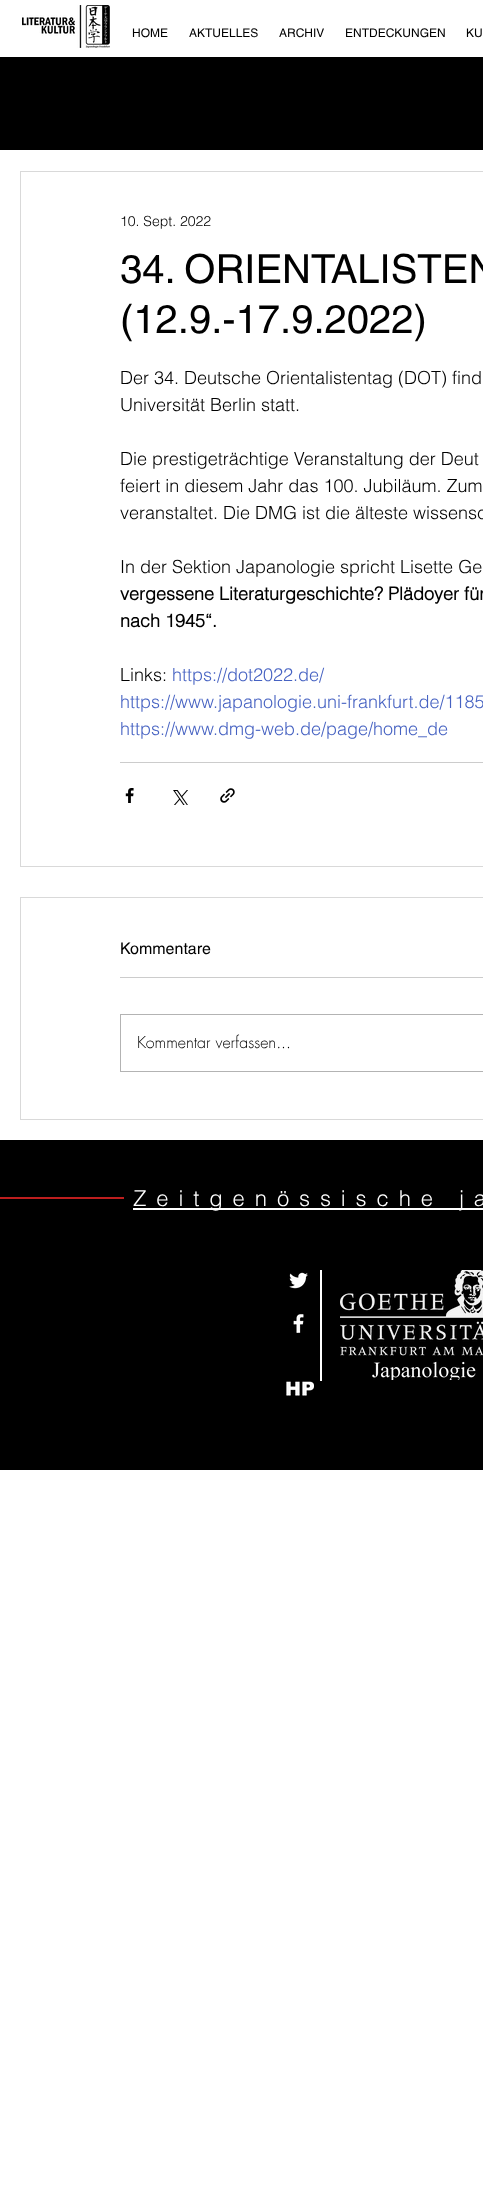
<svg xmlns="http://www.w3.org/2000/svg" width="483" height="2206">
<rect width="100%" height="100%" fill="#fff"/>
<image x="22" y="5" width="88" height="43" href="media/1.png"/>
<text x="132" y="37" style="font-family:helvetica;font-size:12px;fill:#000">HOME</text>
<text x="189" y="37" style="font-family:helvetica;font-size:12px;fill:#000">AKTUELLES</text>
<text x="279" y="37" style="font-family:helvetica;font-size:12px;fill:#000">ARCHIV</text>
<text x="345" y="37" style="font-family:helvetica;font-size:12px;fill:#000">ENTDECKUNGEN</text>
<text x="466" y="37" style="font-family:helvetica;font-size:12px;fill:#000">KU</text>
<rect y="57" width="483" height="93" fill="#000"/>
<rect x="20.5" y="171.5" width="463" height="695" fill="none" stroke="#d9d9d9"/>
<text x="120" y="226" style="font-family:helvetica;font-size:14px;font-weight:300;fill:#000">10. Sept. 2022</text>
<text x="120" y="283" style="font-family:helvetica;font-size:40px;fill:#000">34. ORIENTALISTEN</text>
<text x="120" y="333" style="font-family:helvetica;font-size:40px;fill:#000">(12.9.-17.9.2022)</text>
<text x="120" y="384" style="font-family:helvetica;font-size:18px;font-weight:300;fill:#000">Der 34. Deutsche Orientalistentag (DOT) find</text>
<text x="120" y="411" style="font-family:helvetica;font-size:18px;font-weight:300;fill:#000">Universität Berlin statt.</text>
<text x="120" y="465" style="font-family:helvetica;font-size:18px;font-weight:300;fill:#000">Die prestigeträchtige Veranstaltung der Deut</text>
<text x="120" y="492" style="font-family:helvetica;font-size:18px;font-weight:300;fill:#000">feiert in diesem Jahr das 100. Jubiläum. Zum</text>
<text x="120" y="519" style="font-family:helvetica;font-size:18px;font-weight:300;fill:#000">veranstaltet. Die DMG ist die älteste wissensc</text>
<text x="120" y="573" style="font-family:helvetica;font-size:18px;font-weight:300;fill:#000">In der Sektion Japanologie spricht Lisette Ge</text>
<text x="120" y="600" style="font-family:helvetica;font-size:18px;font-weight:bold;fill:#000">vergessene Literaturgeschichte? Plädoyer für</text>
<text x="120" y="627" style="font-family:helvetica;font-size:18px;font-weight:bold;fill:#000">nach 1945“.</text>
<text x="120" y="681" style="font-family:helvetica;font-size:18px;font-weight:300;fill:#000">Links:</text>
<text x="172" y="681" style="font-family:helvetica;font-size:18px;font-weight:300;fill:#4662c2">https://dot2022.de/</text>
<text x="120" y="708" style="font-family:helvetica;font-size:18px;font-weight:300;fill:#4662c2">https://www.japanologie.uni-frankfurt.de/1185</text>
<text x="120" y="735" style="font-family:helvetica;font-size:18px;font-weight:300;fill:#4662c2">https://www.dmg-web.de/page/home_de</text>
<rect x="120" y="762" width="363" height="1" fill="#ccc"/>
<image x="125" y="788" width="9" height="15" href="media/2.png"/>
<image x="173" y="790" width="15" height="15" href="media/3.png"/>
<image x="220" y="788" width="15" height="15" href="media/4.png"/>
<rect x="20.5" y="897.5" width="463" height="222" fill="none" stroke="#d9d9d9"/>
<text x="120" y="954" style="font-family:helvetica;font-size:16px;fill:#000">Kommentare</text>
<rect x="120" y="977" width="363" height="1" fill="#ccc"/>
<rect x="120.5" y="1014.5" width="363" height="57" fill="none" stroke="#b3b3b3"/>
<text x="137" y="1048" style="font-family:futura;font-size:16px;font-weight:300;fill:#000">Kommentar verfassen...</text>
<rect y="1140" width="483" height="330" fill="#000"/>
<rect y="1197" width="124" height="2" fill="#bd1e1e"/>
<rect x="133" y="1208" width="350" height="2" fill="#fff"/>
<text x="133" y="1206" style="font-family:helvetica;font-size:22px;font-weight:300;letter-spacing:9.9px;fill:#fff">Zeitgenössische ja</text>
<image x="289" y="1272" width="19" height="17" href="media/5.png"/>
<image x="293" y="1314" width="11" height="19" href="media/6.png"/>
<rect x="320" y="1270" width="2" height="111" fill="#fff"/>
<image x="340" y="1270" width="143" height="110" href="media/7.png"/>
<image x="286" y="1381" width="28" height="15" href="media/8.png"/>
</svg>
